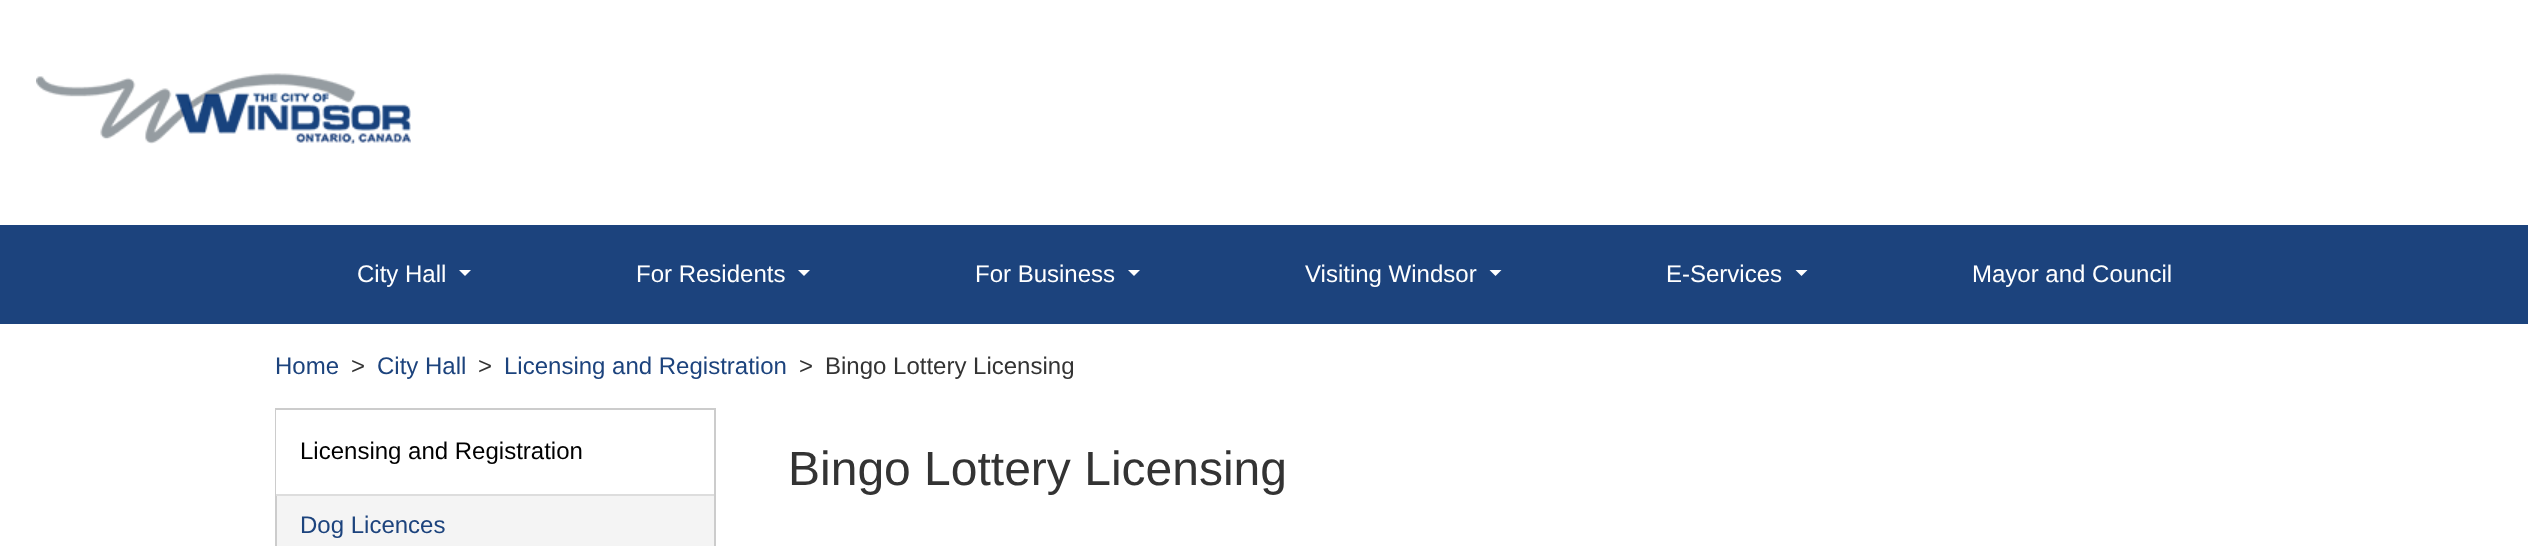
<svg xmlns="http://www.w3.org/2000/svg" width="2528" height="546">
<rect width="100%" height="100%" fill="#fff"/>
<image x="36" y="73" width="375" height="71" href="media/1.png"/>
<rect y="225" width="2528" height="99" fill="#1c437d"/>
<text x="357" y="282" style="font-family:Liberation Sans;font-size:24px;fill:#fff">City Hall</text>
<path d="M459 270h12l-6 6z" fill="#fff"/>
<text x="636" y="282" style="font-family:Liberation Sans;font-size:24px;fill:#fff">For Residents</text>
<path d="M798 270h12l-6 6z" fill="#fff"/>
<text x="975" y="282" style="font-family:Liberation Sans;font-size:24px;fill:#fff">For Business</text>
<path d="M1128 270h12l-6 6z" fill="#fff"/>
<text x="1305" y="282" style="font-family:Liberation Sans;font-size:24px;fill:#fff">Visiting Windsor</text>
<path d="M1489.5 270h12l-6 6z" fill="#fff"/>
<text x="1666" y="282" style="font-family:Liberation Sans;font-size:24px;fill:#fff">E-Services</text>
<path d="M1795.5 270h12l-6 6z" fill="#fff"/>
<text x="1972" y="282" style="font-family:Liberation Sans;font-size:24px;fill:#fff">Mayor and Council</text>
<text x="275" y="374" style="font-family:Liberation Sans;font-size:24px;fill:#1c437d">Home</text>
<text x="351" y="374" style="font-family:Liberation Sans;font-size:24px;fill:#333">&gt;</text>
<text x="377" y="374" style="font-family:Liberation Sans;font-size:24px;fill:#1c437d">City Hall</text>
<text x="478" y="374" style="font-family:Liberation Sans;font-size:24px;fill:#333">&gt;</text>
<text x="504" y="374" style="font-family:Liberation Sans;font-size:24px;fill:#1c437d">Licensing and Registration</text>
<text x="799" y="374" style="font-family:Liberation Sans;font-size:24px;fill:#333">&gt;</text>
<text x="825" y="374" style="font-family:Liberation Sans;font-size:24px;fill:#333">Bingo Lottery Licensing</text>
<rect x="277" y="496" width="437" height="50" fill="#f4f4f4"/>
<rect x="276" y="409" width="439" height="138" fill="none" stroke="#ccc" stroke-width="2"/>
<rect x="276" y="410" width="1" height="84" fill="#fff"/>
<rect x="276" y="494" width="438" height="2" fill="#ddd"/>
<text x="300" y="459" style="font-family:Liberation Sans;font-size:24px;fill:#000">Licensing and Registration</text>
<text x="300" y="533" style="font-family:Liberation Sans;font-size:24px;fill:#1c437d">Dog Licences</text>
<text x="788" y="485" style="font-family:Liberation Sans;font-size:48px;fill:#333">Bingo Lottery Licensing</text>
</svg>
